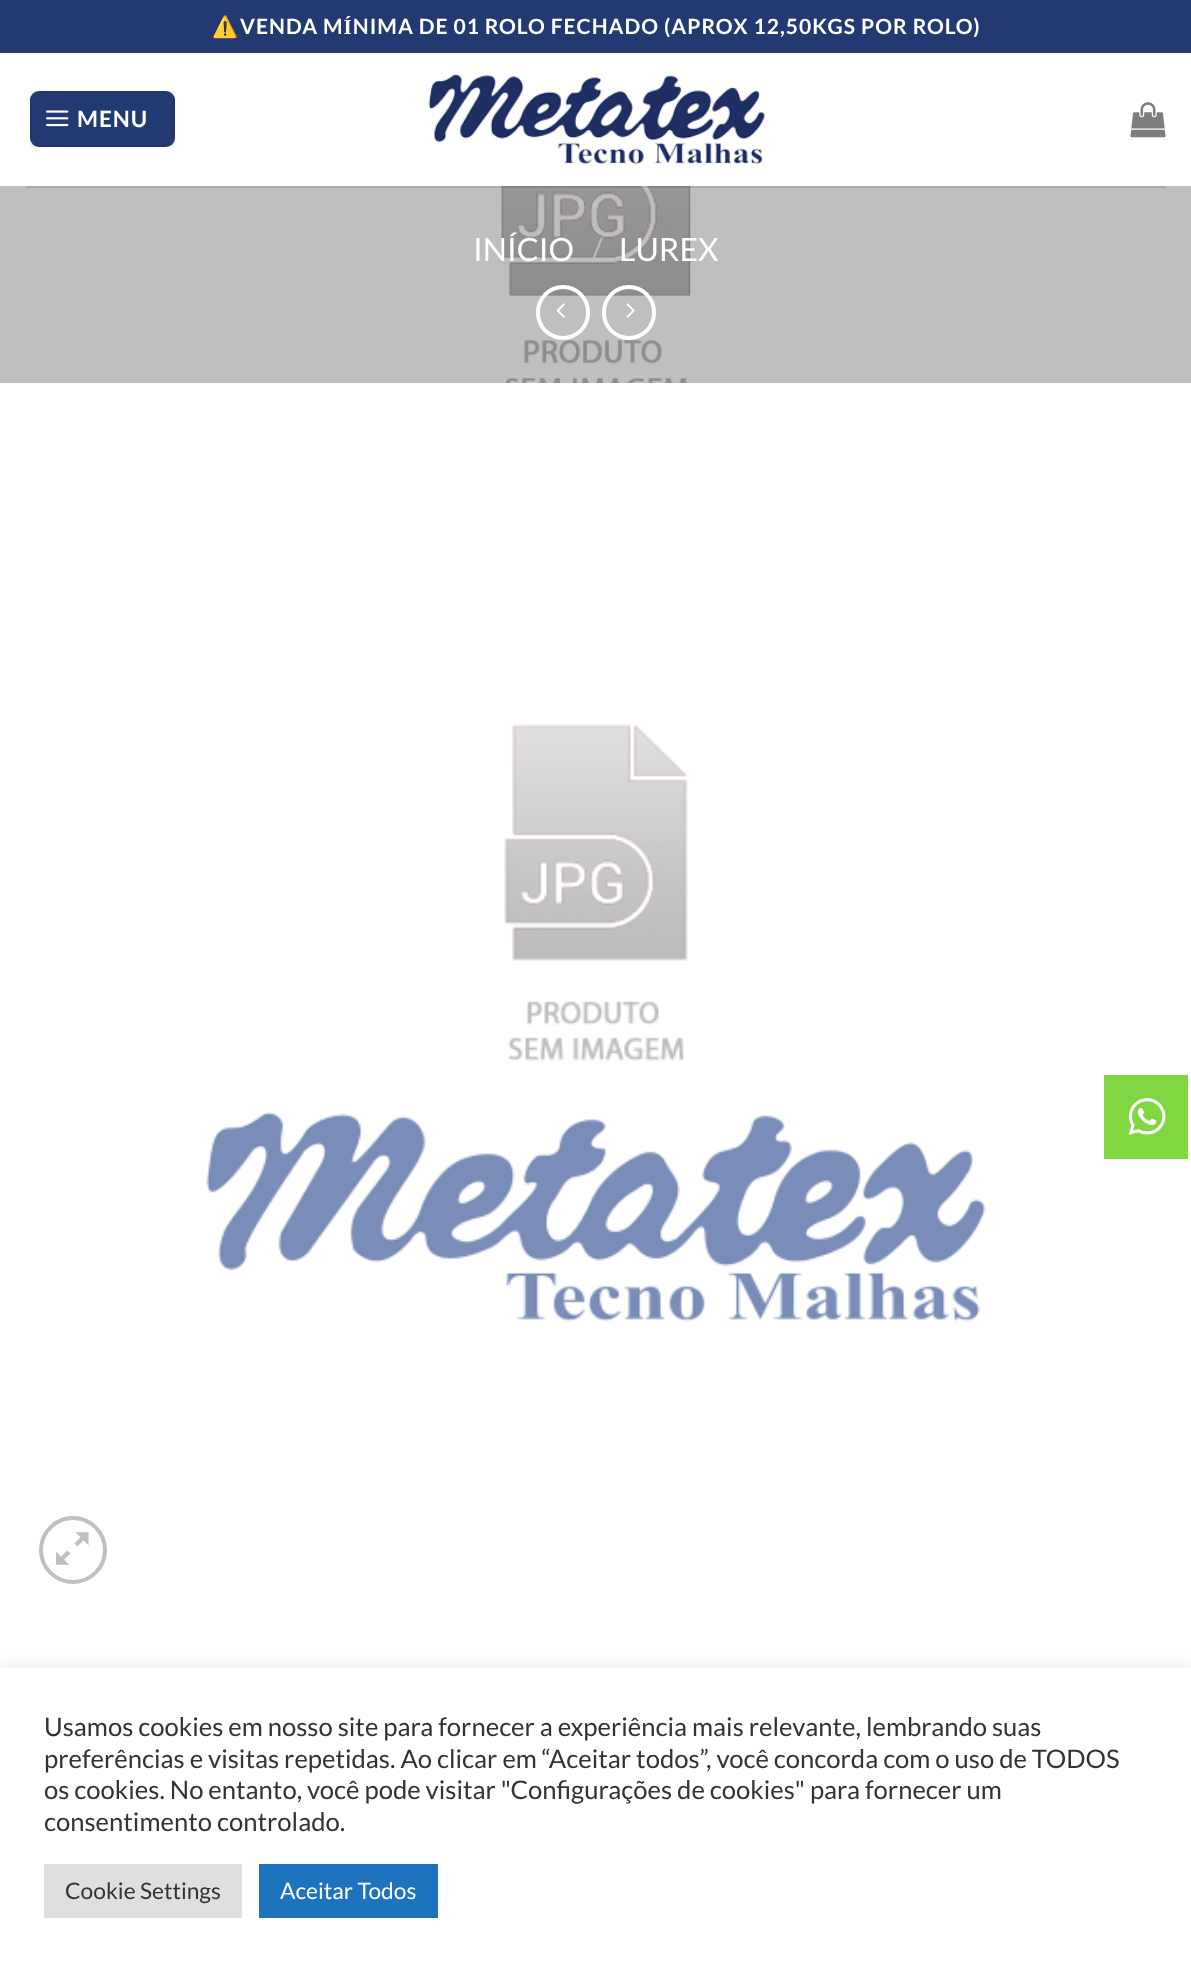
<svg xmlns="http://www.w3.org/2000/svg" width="1191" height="1970">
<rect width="100%" height="100%" fill="#fff"/>
<rect width="1191" height="53" fill="#223971"/>
<text x="212" y="34" style="font-family:Noto Color Emoji;font-size:21px;font-weight:bold;letter-spacing:1.05px;fill:#fff">⚠️</text>
<text x="240" y="34" word-spacing="-0.25" style="font-family:Lato;font-size:21px;font-weight:bold;letter-spacing:1.05px;fill:#fff">VENDA MÍNIMA DE 01 ROLO FECHADO (APROX 12,50KGS POR ROLO)</text>
<rect x="30" y="91" width="145" height="56" rx="9" fill="#223971"/>
<rect x="31" y="92" width="143" height="54" fill="none" stroke="#0000000d" stroke-width="2"/>
<image x="46" y="110" width="23" height="17" href="media/1.png"/>
<text x="77" y="127" style="font-family:Lato;font-size:22.5px;font-weight:bold;letter-spacing:1px;fill:#fff">MENU</text>
<image x="428" y="74" width="337" height="91" href="media/2.png"/>
<image x="1130" y="102" width="36" height="36" href="media/3.png"/>
<image x="0" y="185" width="1191" height="198" href="media/4.png"/>
<rect x="26" y="186" width="1140" height="2" fill="#0000001a"/>
<rect x="501" y="185" width="190" height="1" fill="#ffffffe6"/>
<text x="473" y="261" style="font-family:Lato;font-size:32px;fill:#fff">INÍCIO</text>
<text x="591" y="261" style="font-family:Lato;font-size:32px;fill:#bdbcbc">/</text>
<text x="619" y="261" style="font-family:Lato;font-size:32px;fill:#fff">LUREX</text>
<rect x="538" y="287" width="50" height="51" rx="25" fill="none" stroke="#fff" stroke-width="4"/>
<image x="556" y="303" width="9" height="15" href="media/5.png"/>
<rect x="604" y="287" width="50" height="51" rx="25" fill="none" stroke="#fff" stroke-width="4"/>
<image x="626" y="303" width="9" height="15" href="media/6.png"/>
<image x="206" y="724" width="780" height="598" href="media/7.png"/>
<circle cx="73" cy="1550" r="32" fill="none" stroke="#c0c0c0" stroke-width="4"/>
<image x="56" y="1532" width="33" height="33" href="media/8.png"/>
<rect x="1104" y="1075" width="84" height="84" fill="#81d742"/>
<image x="1128" y="1098" width="38" height="37" href="media/9.png"/>
<rect y="1666" width="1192" height="303" fill="#acabab4d" filter="blur(9px)"/>
<rect y="1668" width="1191" height="302" fill="#fff"/>
<text x="44" y="1736" style="font-family:Lato;font-size:25.65px;fill:#333">Usamos cookies em nosso site para fornecer a experiência mais relevante, lembrando suas</text>
<text x="44" y="1768" style="font-family:Lato;font-size:25.65px;fill:#333">preferências e visitas repetidas. Ao clicar em “Aceitar todos”, você concorda com o uso de TODOS</text>
<text x="44" y="1799" style="font-family:Lato;font-size:25.65px;fill:#333">os cookies. No entanto, você pode visitar "Configurações de cookies" para fornecer um</text>
<text x="44" y="1831" style="font-family:Lato;font-size:25.65px;fill:#333">consentimento controlado.</text>
<rect x="44" y="1864" width="198" height="54" fill="#dedfe0"/>
<text x="65" y="1899" style="font-family:Lato;font-size:22.75px;fill:#333">Cookie Settings</text>
<rect x="259" y="1864" width="179" height="54" fill="#1e73be"/>
<text x="280" y="1899" style="font-family:Lato;font-size:22.75px;fill:#fff">Aceitar Todos</text>
</svg>
